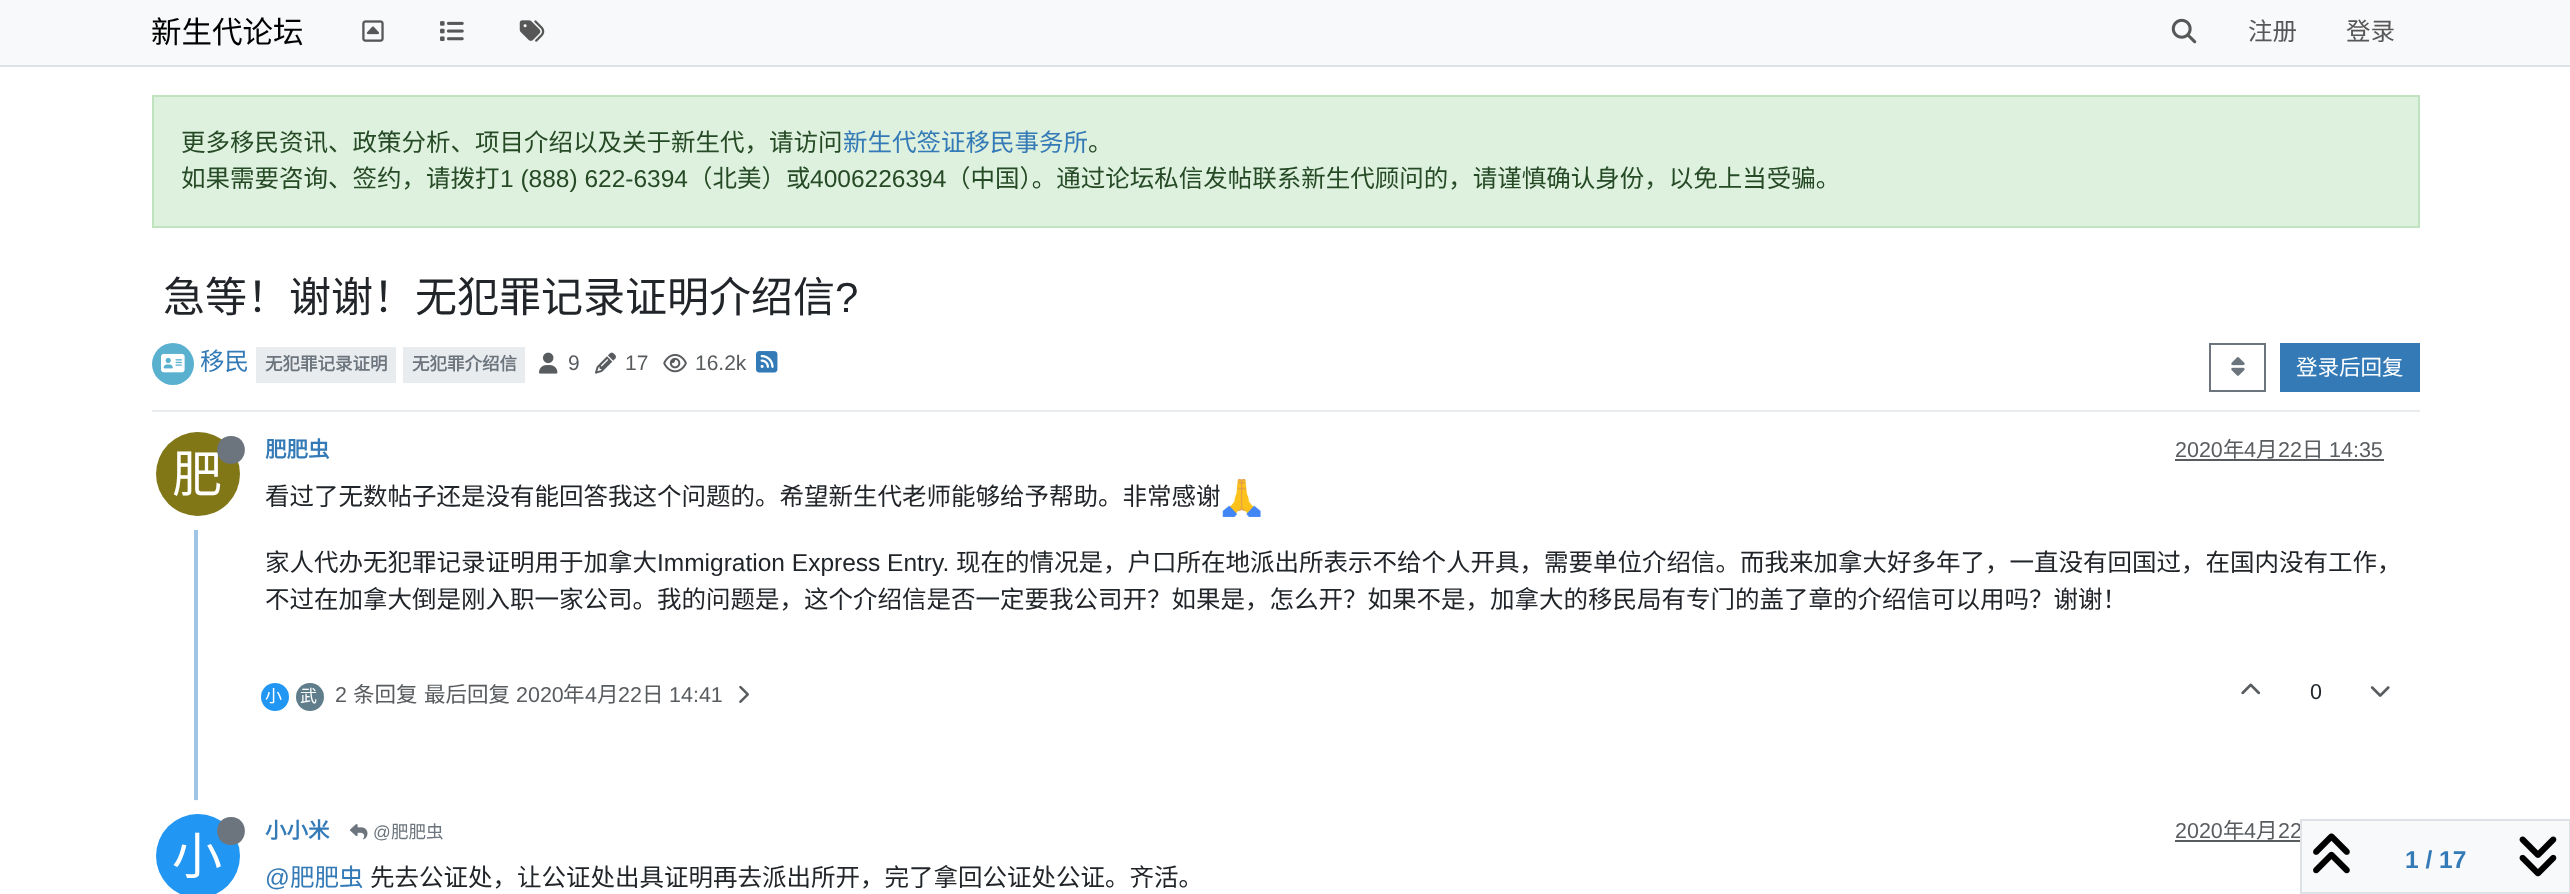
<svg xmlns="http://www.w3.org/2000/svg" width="2570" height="894">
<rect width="100%" height="100%" fill="#fff"/>
<rect width="2570" height="65" fill="#f8f9fa"/>
<rect y="65" width="2570" height="2" fill="#dee2e6"/>
<text x="151" y="43" style="font-family:Noto Sans CJK SC;font-size:30.5px;fill:#000">新生代论坛</text>
<image x="362" y="20" width="22" height="22" href="media/1.png"/>
<image x="440" y="21" width="24" height="20" href="media/2.png"/>
<image x="519" y="20" width="26" height="22" href="media/3.png"/>
<image x="2171" y="18" width="26" height="26" href="media/4.png"/>
<text x="2248" y="40" style="font-family:Noto Sans CJK SC;font-size:24.5px;fill:#575758">注册</text>
<text x="2346" y="40" style="font-family:Noto Sans CJK SC;font-size:24.5px;fill:#575758">登录</text>
<rect x="153" y="96" width="2266" height="131" fill="#def1de" stroke="#bee3be" stroke-width="2"/>
<text x="181" y="151" style="font-family:Noto Sans CJK SC;font-size:24.5px;fill:#254a25">更多移民资讯、政策分析、项目介绍以及关于新生代，请访问</text>
<text x="843" y="151" style="font-family:Noto Sans CJK SC;font-size:24.5px;fill:#337ab7">新生代签证移民事务所</text>
<text x="1088" y="151" style="font-family:Noto Sans CJK SC;font-size:24.5px;fill:#254a25">。</text>
<text x="181" y="187" style="font-family:Noto Sans CJK SC;font-size:24.5px;fill:#254a25">如果需要咨询、签约，请拨打</text>
<text x="500" y="187" style="font-family:Liberation Sans;font-size:24.5px;fill:#254a25">1 (888) 622-6394</text>
<text x="688" y="187" style="font-family:Noto Sans CJK SC;font-size:24.5px;fill:#254a25">（北美）或</text>
<text x="810" y="187" style="font-family:Liberation Sans;font-size:24.5px;fill:#254a25">4006226394</text>
<text x="946" y="187" style="font-family:Noto Sans CJK SC;font-size:24.5px;fill:#254a25">（中国）。通过论坛私信发帖联系新生代顾问的，请谨慎确认身份，以免上当受骗。</text>
<text x="163" y="312" style="font-family:Noto Sans CJK SC;font-size:42px;fill:#212529">急等！谢谢！无犯罪记录证明介绍信</text>
<text x="835" y="312" style="font-family:Liberation Sans;font-size:42px;fill:#212529">?</text>
<rect x="152" y="410" width="2268" height="2" fill="#e9ecef"/>
<circle cx="173" cy="364" r="21" fill="#59b0cf"/>
<image x="161" y="353" width="24" height="20" href="media/5.png"/>
<text x="200" y="370" style="font-family:Noto Sans CJK SC;font-size:24.5px;fill:#337ab7">移民</text>
<rect x="256" y="347" width="140" height="36" fill="#e9ecef"/>
<text x="265" y="370" style="font-family:Noto Sans CJK SC;font-size:17.5px;font-weight:bold;fill:#6c757d">无犯罪记录证明</text>
<rect x="403" y="347" width="122" height="36" fill="#e9ecef"/>
<text x="412" y="370" style="font-family:Noto Sans CJK SC;font-size:17.5px;font-weight:bold;fill:#6c757d">无犯罪介绍信</text>
<image x="539" y="352" width="19" height="22" href="media/6.png"/>
<text x="568" y="370" style="font-family:Liberation Sans;font-size:21px;fill:#595c5f">9</text>
<image x="595" y="352" width="21" height="22" href="media/7.png"/>
<text x="625" y="370" style="font-family:Liberation Sans;font-size:21px;fill:#595c5f">17</text>
<image x="663" y="354" width="24" height="19" href="media/8.png"/>
<text x="695" y="370" style="font-family:Liberation Sans;font-size:21px;fill:#595c5f">16.2k</text>
<image x="756" y="351" width="22" height="22" href="media/9.png"/>
<rect x="2210" y="344" width="55" height="47" fill="none" stroke="#6c757d" stroke-width="2"/>
<image x="2231" y="357" width="14" height="19" href="media/10.png"/>
<rect x="2280" y="343" width="140" height="49" fill="#337ab7"/>
<text x="2296" y="375" style="font-family:Noto Sans CJK SC;font-size:21.5px;fill:#fff">登录后回复</text>
<rect x="194" y="429" width="4" height="386" fill="#a0c4e4"/>
<text x="265" y="457" style="font-family:Noto Sans CJK SC;font-size:21.5px;font-weight:bold;fill:#337ab7">肥肥虫</text>
<text x="2175" y="457" style="font-family:Liberation Sans;font-size:21.5px;fill:#595c5f">2020</text>
<rect x="2175" y="459" width="209" height="2" fill="#595c5f"/>
<text x="2223" y="457" style="font-family:Noto Sans CJK SC;font-size:21.5px;fill:#595c5f">年</text>
<text x="2244" y="457" style="font-family:Liberation Sans;font-size:21.5px;fill:#595c5f">4</text>
<text x="2256" y="457" style="font-family:Noto Sans CJK SC;font-size:21.5px;fill:#595c5f">月</text>
<text x="2278" y="457" style="font-family:Liberation Sans;font-size:21.5px;fill:#595c5f">22</text>
<text x="2302" y="457" style="font-family:Noto Sans CJK SC;font-size:21.5px;fill:#595c5f">日</text>
<text x="2329" y="457" style="font-family:Liberation Sans;font-size:21.5px;fill:#595c5f">14:35</text>
<circle cx="198" cy="474" r="49" fill="none" stroke="#fff" stroke-width="14"/>
<circle cx="198" cy="474" r="42" fill="#827717"/>
<text x="172" y="492" style="font-family:Noto Sans CJK SC;font-size:50px;fill:#fff">肥</text>
<path d="M231 464c18.5-.5 18.5-28 0-28c-18.5 0-18.5 27.5 0 28z" fill="#6c757d"/>
<text x="265" y="505" style="font-family:Noto Sans CJK SC;font-size:24.5px;fill:#212529">看过了无数帖子还是没有能回答我这个问题的。希望新生代老师能够给予帮助。非常感谢</text>
<image x="1222" y="479" width="39" height="38" href="media/11.png"/>
<text x="265" y="571" style="font-family:Noto Sans CJK SC;font-size:24.5px;fill:#212529">家人代办无犯罪记录证明用于加拿大</text>
<text x="657" y="571" style="font-family:Liberation Sans;font-size:24.5px;fill:#212529">Immigration Express Entry.</text>
<text x="956" y="571" style="font-family:Noto Sans CJK SC;font-size:24.5px;fill:#212529">现在的情况是，户口所在地派出所表示不给个人开具，需要单位介绍信。而我来加拿大好多年了，一直没有回国过，在国内没有工作，</text>
<text x="265" y="608" style="font-family:Noto Sans CJK SC;font-size:24.5px;fill:#212529">不过在加拿大倒是刚入职一家公司。我的问题是，这个介绍信是否一定要我公司开？如果是，怎么开？如果不是，加拿大的移民局有专门的盖了章的介绍信可以用吗？谢谢！</text>
<circle cx="275" cy="697" r="14" fill="#2196f3"/>
<text x="265" y="702" style="font-family:Noto Sans CJK SC;font-size:17px;fill:#fff">小</text>
<circle cx="310" cy="697" r="14" fill="#607d8b"/>
<text x="300" y="702" style="font-family:Noto Sans CJK SC;font-size:17px;fill:#fff">武</text>
<text x="335" y="702" style="font-family:Liberation Sans;font-size:21.5px;fill:#595c5f">2</text>
<text x="353" y="702" style="font-family:Noto Sans CJK SC;font-size:21.5px;fill:#595c5f">条回复</text>
<text x="424" y="702" style="font-family:Noto Sans CJK SC;font-size:21.5px;fill:#595c5f">最后回复</text>
<text x="516" y="702" style="font-family:Liberation Sans;font-size:21.5px;fill:#595c5f">2020</text>
<text x="563" y="702" style="font-family:Noto Sans CJK SC;font-size:21.5px;fill:#595c5f">年</text>
<text x="585" y="702" style="font-family:Liberation Sans;font-size:21.5px;fill:#595c5f">4</text>
<text x="597" y="702" style="font-family:Noto Sans CJK SC;font-size:21.5px;fill:#595c5f">月</text>
<text x="618" y="702" style="font-family:Liberation Sans;font-size:21.5px;fill:#595c5f">22</text>
<text x="642" y="702" style="font-family:Noto Sans CJK SC;font-size:21.5px;fill:#595c5f">日</text>
<text x="669" y="702" style="font-family:Liberation Sans;font-size:21.5px;fill:#595c5f">14:41</text>
<image x="739" y="685" width="10" height="18" href="media/12.png"/>
<image x="2241" y="683" width="20" height="12" href="media/13.png"/>
<text x="2310" y="699" style="font-family:Liberation Sans;font-size:21.5px;fill:#212529">0</text>
<image x="2370" y="686" width="20" height="11" href="media/14.png"/>
<circle cx="198" cy="856" r="49" fill="none" stroke="#fff" stroke-width="14"/>
<circle cx="198" cy="856" r="42" fill="#2196f3"/>
<text x="172" y="874" style="font-family:Noto Sans CJK SC;font-size:50px;fill:#fff">小</text>
<path d="M231 845c18.5 0 18.5-28 0-28c-18.5 0-18.5 28 0 28z" fill="#6c757d"/>
<text x="265" y="838" style="font-family:Noto Sans CJK SC;font-size:21.5px;font-weight:bold;fill:#337ab7">小小米</text>
<image x="350" y="824" width="18" height="16" href="media/15.png"/>
<text x="373" y="838" style="font-family:Liberation Sans;font-size:17.5px;fill:#6c757d">@</text>
<text x="391" y="838" style="font-family:Noto Sans CJK SC;font-size:17.5px;fill:#6c757d">肥肥虫</text>
<text x="2175" y="838" style="font-family:Liberation Sans;font-size:21.5px;fill:#595c5f">2020</text>
<rect x="2175" y="840" width="125" height="2" fill="#595c5f"/>
<text x="2223" y="838" style="font-family:Noto Sans CJK SC;font-size:21.5px;fill:#595c5f">年</text>
<text x="2244" y="838" style="font-family:Liberation Sans;font-size:21.5px;fill:#595c5f">4</text>
<text x="2256" y="838" style="font-family:Noto Sans CJK SC;font-size:21.5px;fill:#595c5f">月</text>
<text x="2278" y="838" style="font-family:Liberation Sans;font-size:21.5px;fill:#595c5f">22</text>
<text x="265" y="886" style="font-family:Liberation Sans;font-size:24.5px;fill:#337ab7">@</text>
<text x="290" y="886" style="font-family:Noto Sans CJK SC;font-size:24.5px;fill:#337ab7">肥肥虫</text>
<text x="370" y="886" style="font-family:Noto Sans CJK SC;font-size:24.5px;fill:#212529">先去公证处，让公证处出具证明再去派出所开，完了拿回公证处公证。齐活。</text>
<rect x="2301" y="820" width="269" height="73" fill="#f8f9fa" stroke="#dee2e6" stroke-width="2"/>
<image x="2313" y="833" width="37" height="41" href="media/16.png"/>
<text x="2405" y="868" style="font-family:Liberation Sans;font-size:24.5px;font-weight:bold;fill:#337ab7">1 / 17</text>
<image x="2519" y="836" width="38" height="41" href="media/17.png"/>
</svg>
